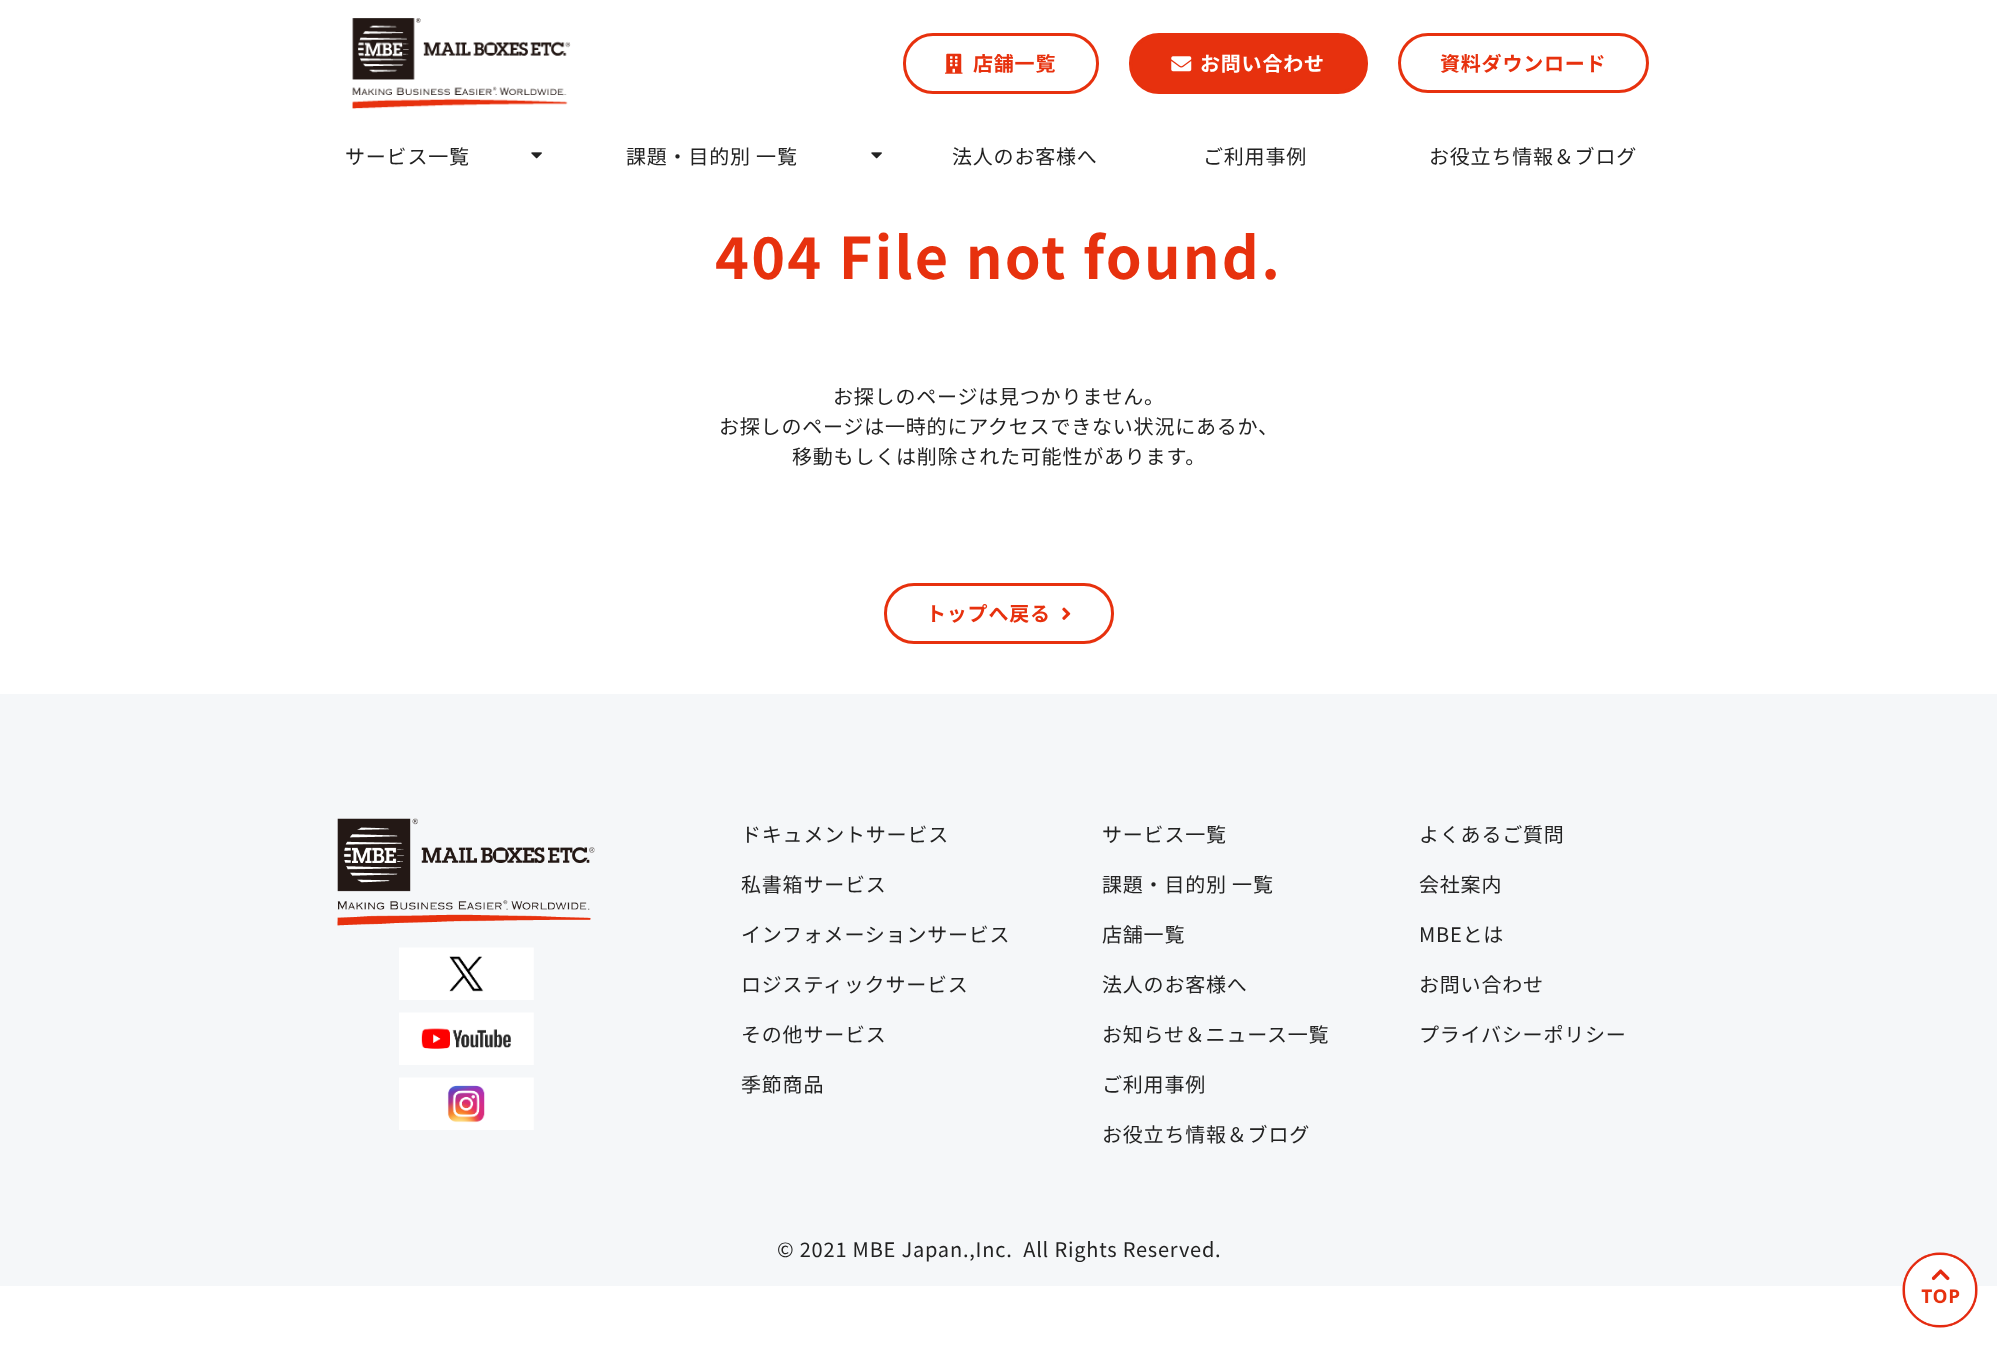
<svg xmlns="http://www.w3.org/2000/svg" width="1997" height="1347">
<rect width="100%" height="100%" fill="#fff"/>
<image x="352" y="18" width="219" height="91" href="media/1.png"/>
<rect x="904.5" y="34.5" width="193" height="58" rx="28.5" fill="none" stroke="#e7310e" stroke-width="3"/>
<image x="945" y="53" width="18" height="21" href="media/2.png"/>
<text x="973" y="71" style="font-family:Noto Sans JP;font-size:20px;font-weight:bold;letter-spacing:0.8px;fill:#e7310e">店舗一覧</text>
<rect x="1130.5" y="34.5" width="236" height="58" rx="28.5" fill="#e7310e" stroke="#e7310e" stroke-width="3"/>
<image x="1171" y="56" width="21" height="16" href="media/3.png"/>
<text x="1200" y="71" style="font-family:Noto Sans JP;font-size:20px;font-weight:bold;letter-spacing:0.8px;fill:#fff">お問い合わせ</text>
<rect x="1399.5" y="34.5" width="248" height="57" rx="28.5" fill="none" stroke="#e7310e" stroke-width="3"/>
<text x="1440" y="71" style="font-family:Noto Sans JP;font-size:20px;font-weight:bold;letter-spacing:0.8px;fill:#e7310e">資料ダウンロード</text>
<text x="345" y="164" style="font-family:Noto Sans JP;font-size:20px;letter-spacing:0.8px;fill:#222">サービス一覧</text>
<image x="531" y="152" width="11" height="7" href="media/4.png"/>
<text x="626" y="164" style="font-family:Noto Sans JP;font-size:20px;letter-spacing:0.8px;fill:#222">課題・目的別 一覧</text>
<image x="871" y="152" width="11" height="7" href="media/4.png"/>
<text x="952" y="164" style="font-family:Noto Sans JP;font-size:20px;letter-spacing:0.8px;fill:#222">法人のお客様へ</text>
<text x="1203" y="164" style="font-family:Noto Sans JP;font-size:20px;letter-spacing:0.8px;fill:#222">ご利用事例</text>
<text x="1429" y="164" style="font-family:Noto Sans JP;font-size:20px;letter-spacing:0.8px;fill:#222">お役立ち情報＆ブログ</text>
<text x="715" y="279" style="font-family:Noto Sans JP;font-size:57.5px;font-weight:bold;letter-spacing:2.25px;fill:#e7310e">404 File not found.</text>
<text x="833" y="404" style="font-family:Noto Sans JP;font-size:20px;letter-spacing:0.8px;fill:#222">お探しのページは見つかりません。</text>
<text x="719" y="434" style="font-family:Noto Sans JP;font-size:20px;letter-spacing:0.8px;fill:#222">お探しのページは一時的にアクセスできない状況にあるか、</text>
<text x="792" y="464" style="font-family:Noto Sans JP;font-size:20px;letter-spacing:0.8px;fill:#222">移動もしくは削除された可能性があります。</text>
<rect x="885.5" y="584.5" width="227" height="58" rx="28.5" fill="none" stroke="#e7310e" stroke-width="3"/>
<text x="926" y="621" style="font-family:Noto Sans JP;font-size:20px;font-weight:bold;letter-spacing:0.8px;fill:#e7310e">トップへ戻る</text>
<image x="1062" y="607" width="9" height="13" href="media/5.png"/>
<rect y="694" width="1997" height="592" fill="#f5f7f9"/>
<image x="337" y="818" width="258" height="108" href="media/6.png"/>
<image x="399" y="947" width="135" height="53" href="media/7.png"/>
<image x="399" y="1012" width="135" height="53" href="media/8.png"/>
<image x="399" y="1077" width="135" height="53" href="media/9.png"/>
<text x="741" y="842" style="font-family:Noto Sans JP;font-size:20px;letter-spacing:0.8px;fill:#222">ドキュメントサービス</text>
<text x="741" y="892" style="font-family:Noto Sans JP;font-size:20px;letter-spacing:0.8px;fill:#222">私書箱サービス</text>
<text x="741" y="942" style="font-family:Noto Sans JP;font-size:20px;letter-spacing:0.8px;fill:#222">インフォメーションサービス</text>
<text x="741" y="992" style="font-family:Noto Sans JP;font-size:20px;letter-spacing:0.8px;fill:#222">ロジスティックサービス</text>
<text x="741" y="1042" style="font-family:Noto Sans JP;font-size:20px;letter-spacing:0.8px;fill:#222">その他サービス</text>
<text x="741" y="1092" style="font-family:Noto Sans JP;font-size:20px;letter-spacing:0.8px;fill:#222">季節商品</text>
<text x="1102" y="842" style="font-family:Noto Sans JP;font-size:20px;letter-spacing:0.8px;fill:#222">サービス一覧</text>
<text x="1102" y="892" style="font-family:Noto Sans JP;font-size:20px;letter-spacing:0.8px;fill:#222">課題・目的別 一覧</text>
<text x="1102" y="942" style="font-family:Noto Sans JP;font-size:20px;letter-spacing:0.8px;fill:#222">店舗一覧</text>
<text x="1102" y="992" style="font-family:Noto Sans JP;font-size:20px;letter-spacing:0.8px;fill:#222">法人のお客様へ</text>
<text x="1102" y="1042" style="font-family:Noto Sans JP;font-size:20px;letter-spacing:0.8px;fill:#222">お知らせ＆ニュース一覧</text>
<text x="1102" y="1092" style="font-family:Noto Sans JP;font-size:20px;letter-spacing:0.8px;fill:#222">ご利用事例</text>
<text x="1102" y="1142" style="font-family:Noto Sans JP;font-size:20px;letter-spacing:0.8px;fill:#222">お役立ち情報＆ブログ</text>
<text x="1419" y="842" style="font-family:Noto Sans JP;font-size:20px;letter-spacing:0.8px;fill:#222">よくあるご質問</text>
<text x="1419" y="892" style="font-family:Noto Sans JP;font-size:20px;letter-spacing:0.8px;fill:#222">会社案内</text>
<text x="1419" y="942" style="font-family:Noto Sans JP;font-size:20px;letter-spacing:0.8px;fill:#222">MBEとは</text>
<text x="1419" y="992" style="font-family:Noto Sans JP;font-size:20px;letter-spacing:0.8px;fill:#222">お問い合わせ</text>
<text x="1419" y="1042" style="font-family:Noto Sans JP;font-size:20px;letter-spacing:0.8px;fill:#222">プライバシーポリシー</text>
<image x="1902" y="1252" width="76" height="76" href="media/10.png"/>
<text x="777" y="1257" style="font-family:Noto Sans JP;font-size:20px;letter-spacing:0.8px;fill:#222" xml:space="preserve">© 2021 MBE Japan.,Inc.  All Rights Reserved.</text>
</svg>
